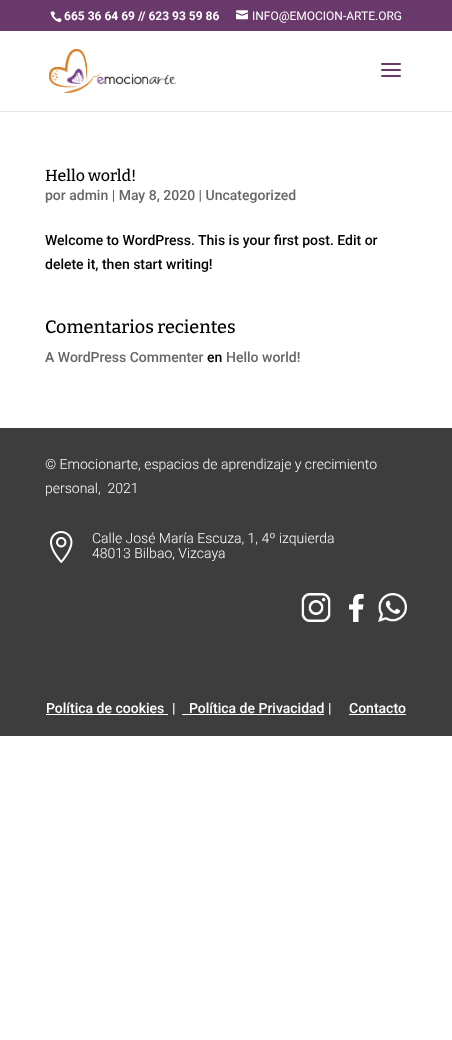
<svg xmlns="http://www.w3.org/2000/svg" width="452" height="1040">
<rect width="100%" height="100%" fill="#fff"/>
<rect width="452" height="31" fill="#6a396b"/>
<image x="50" y="11" width="12" height="12" href="media/1.png"/>
<text x="64" y="20" style="font-family:Roboto;font-size:12px;font-weight:bold;fill:#fff">665 36 64 69 // 623 93 59 86</text>
<image x="236" y="10" width="12" height="10" href="media/2.png"/>
<text x="252" y="20" style="font-family:Roboto;font-size:12px;fill:#fff">INFO@EMOCION-ARTE.ORG</text>
<rect y="111" width="452" height="1" fill="#e6e6e6"/>
<image x="49" y="49" width="127" height="44" href="media/3.png"/>
<image x="381" y="63" width="20" height="14" href="media/4.png"/>
<text x="45" y="181" style="font-family:Bitter;font-size:16px;font-weight:100;fill:#000">Hello world!</text>
<text x="45" y="200" style="font-family:Roboto;font-size:14px;font-weight:500;fill:#666">por admin | May 8, 2020 | Uncategorized</text>
<text x="45" y="245" style="font-family:Roboto;font-size:14px;font-weight:500;fill:#000">Welcome to WordPress. This is your first post. Edit or</text>
<text x="45" y="269" style="font-family:Roboto;font-size:14px;font-weight:500;fill:#000">delete it, then start writing!</text>
<text x="45" y="333" style="font-family:Bitter;font-size:18px;font-weight:100;fill:#000">Comentarios recientes</text>
<text x="45" y="362" style="font-family:Roboto;font-size:14px;font-weight:500;fill:#666">A WordPress Commenter</text>
<text x="207" y="362" style="font-family:Roboto;font-size:14px;font-weight:500;fill:#000">en</text>
<text x="226" y="362" style="font-family:Roboto;font-size:14px;font-weight:500;fill:#666">Hello world!</text>
<rect y="428" width="452" height="308" fill="#3d3d3d"/>
<text x="45" y="469" style="font-family:Roboto;font-size:14px;font-weight:300;fill:#fff">© Emocionarte, espacios de aprendizaje y crecimiento</text>
<text x="45" y="493" style="font-family:Roboto;font-size:14px;font-weight:300;fill:#fff" xml:space="preserve">personal,  2021</text>
<image x="50" y="531" width="23" height="32" href="media/5.png"/>
<text x="92" y="543" style="font-family:Roboto;font-size:14px;font-weight:300;fill:#fff">Calle José María Escuza, 1, 4º izquierda</text>
<text x="92" y="558" style="font-family:Roboto;font-size:14px;font-weight:300;fill:#fff">48013 Bilbao, Vizcaya</text>
<image x="301" y="593" width="30" height="29" href="media/6.png"/>
<image x="349" y="594" width="15" height="28" href="media/7.png"/>
<image x="378" y="593" width="29" height="29" href="media/8.png"/>
<text x="46" y="713" style="font-family:Roboto;font-size:14px;font-weight:500;fill:#fff">Política de cookies</text>
<rect x="46" y="714" width="122" height="1" fill="#fff"/>
<text x="172" y="713" style="font-family:Roboto;font-size:14px;font-weight:500;fill:#fff">|</text>
<rect x="182" y="714" width="142" height="1" fill="#fff"/>
<text x="189" y="713" style="font-family:Roboto;font-size:14px;font-weight:500;fill:#fff">Política de Privacidad |</text>
<text x="349" y="713" style="font-family:Roboto;font-size:14px;font-weight:500;fill:#fff">Contacto</text>
<rect x="349" y="714" width="57" height="1" fill="#fff"/>
</svg>
